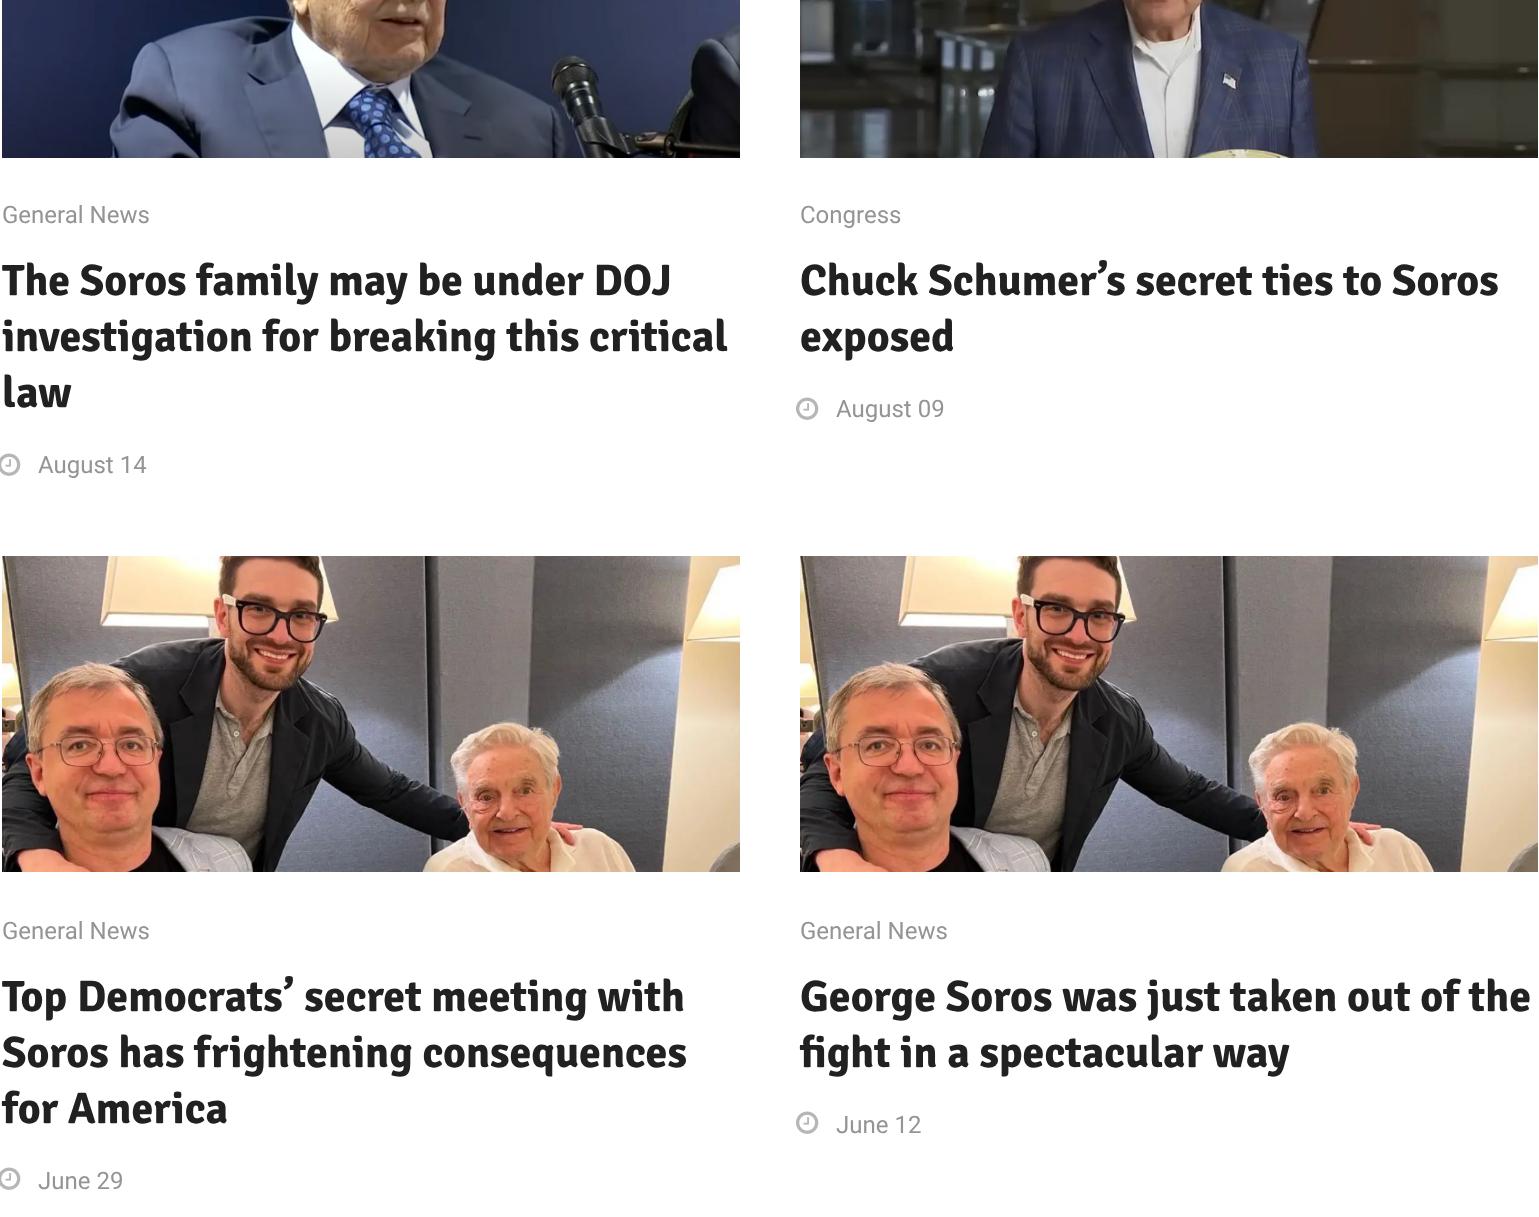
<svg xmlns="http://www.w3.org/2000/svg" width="1539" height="1217">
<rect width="100%" height="100%" fill="#fff"/>
<image x="2" y="0" width="738" height="158" href="media/1.png"/>
<text x="2" y="223" style="font-family:Roboto;font-size:24px;fill:#959494">General News</text>
<text x="2" y="295" style="font-family:Signika;font-size:44px;font-weight:bold;fill:#212121">The Soros family may be under DOJ</text>
<text x="2" y="351" style="font-family:Signika;font-size:44px;font-weight:bold;fill:#212121">investigation for breaking this critical</text>
<text x="2" y="407" style="font-family:Signika;font-size:44px;font-weight:bold;fill:#212121">law</text>
<image x="0" y="453" width="21" height="23" href="media/2.png"/>
<text x="38" y="473" style="font-family:Roboto;font-size:24px;fill:#959494">August 14</text>
<image x="800" y="0" width="738" height="158" href="media/3.png"/>
<text x="800" y="223" style="font-family:Roboto;font-size:24px;fill:#959494">Congress</text>
<text x="800" y="295" style="font-family:Signika;font-size:44px;font-weight:bold;fill:#212121">Chuck Schumer’s secret ties to Soros</text>
<text x="800" y="351" style="font-family:Signika;font-size:44px;font-weight:bold;fill:#212121">exposed</text>
<image x="796" y="397" width="23" height="23" href="media/4.png"/>
<text x="836" y="417" style="font-family:Roboto;font-size:24px;fill:#959494">August 09</text>
<image x="2" y="556" width="738" height="316" href="media/5.png"/>
<text x="2" y="939" style="font-family:Roboto;font-size:24px;fill:#959494">General News</text>
<text x="2" y="1011" style="font-family:Signika;font-size:44px;font-weight:bold;fill:#212121">Top Democrats’ secret meeting with</text>
<text x="2" y="1067" style="font-family:Signika;font-size:44px;font-weight:bold;fill:#212121">Soros has frightening consequences</text>
<text x="2" y="1123" style="font-family:Signika;font-size:44px;font-weight:bold;fill:#212121">for America</text>
<image x="0" y="1167" width="21" height="23" href="media/2.png"/>
<text x="38" y="1189" style="font-family:Roboto;font-size:24px;fill:#959494">June 29</text>
<image x="800" y="556" width="738" height="316" href="media/6.png"/>
<text x="800" y="939" style="font-family:Roboto;font-size:24px;fill:#959494">General News</text>
<text x="800" y="1011" style="font-family:Signika;font-size:44px;font-weight:bold;fill:#212121">George Soros was just taken out of the</text>
<text x="800" y="1067" style="font-family:Signika;font-size:44px;font-weight:bold;fill:#212121">fight in a spectacular way</text>
<image x="796" y="1111" width="23" height="23" href="media/4.png"/>
<text x="836" y="1133" style="font-family:Roboto;font-size:24px;fill:#959494">June 12</text>
</svg>
